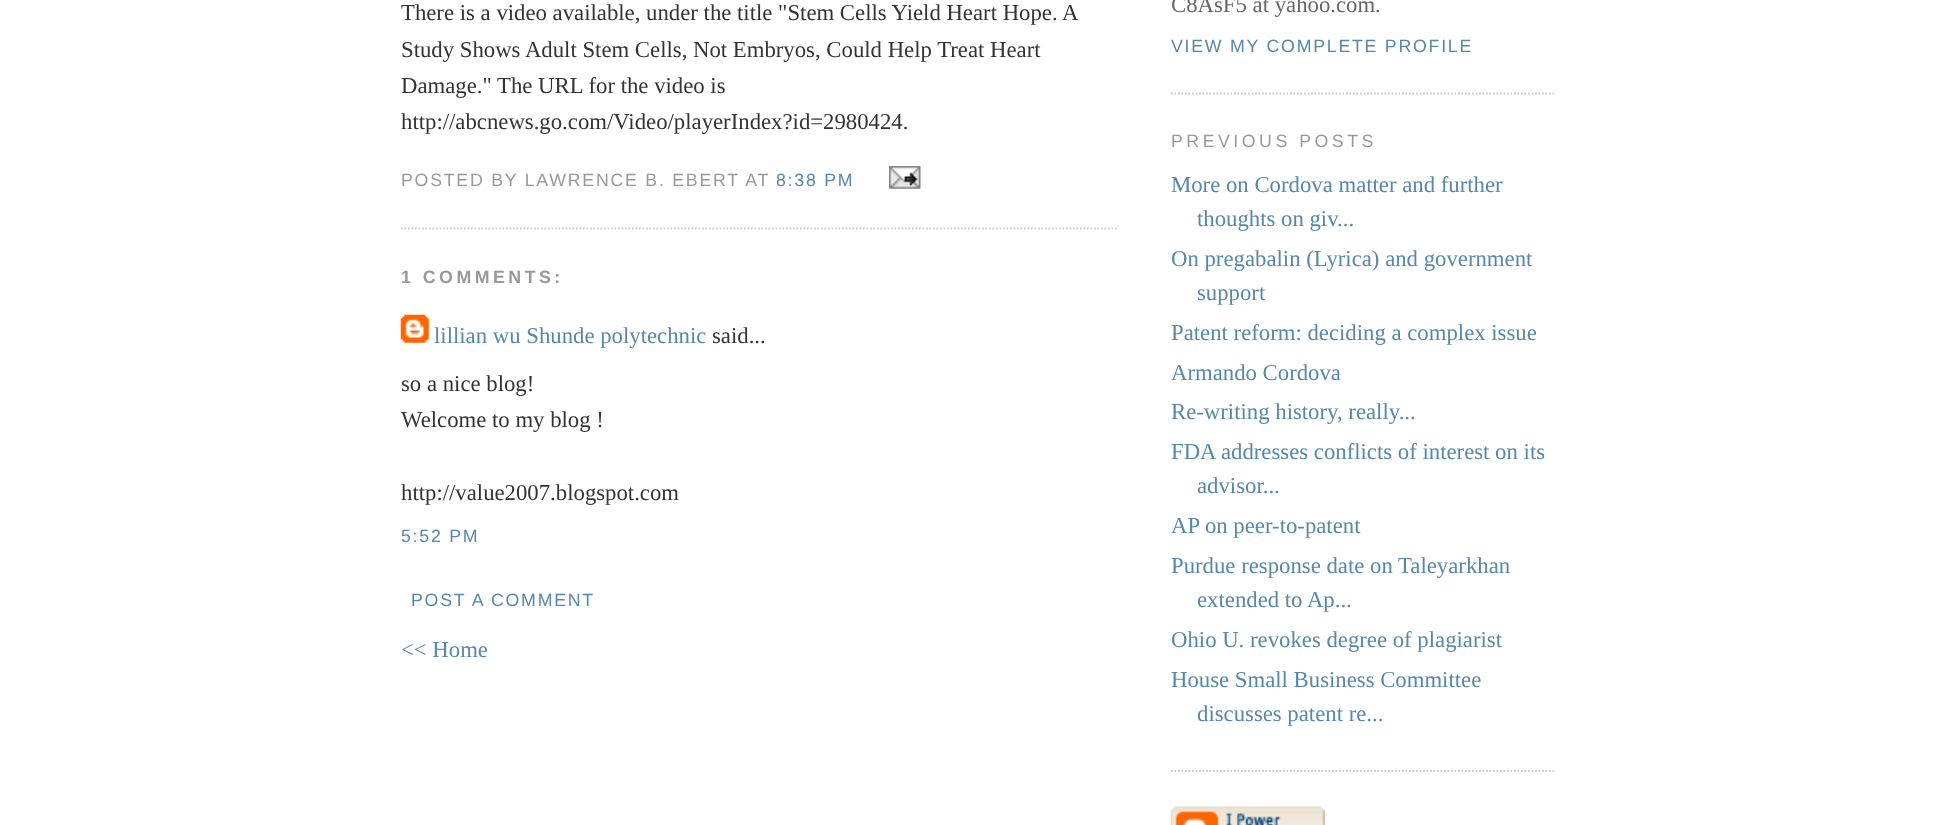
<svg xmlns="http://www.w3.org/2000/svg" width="1956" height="825">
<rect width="100%" height="100%" fill="#fff"/>
<path d="M401 228.5h717" fill="none" stroke="#ccc" stroke-width="1.8" stroke-dasharray="1.75 1.75"/>
<text x="401" y="20" style="font-family:Liberation Serif;font-size:22.75px;fill:#333">There is a video available, under the title "Stem Cells Yield Heart Hope. A</text>
<text x="401" y="57" style="font-family:Liberation Serif;font-size:22.75px;fill:#333">Study Shows Adult Stem Cells, Not Embryos, Could Help Treat Heart</text>
<text x="401" y="93" style="font-family:Liberation Serif;font-size:22.75px;fill:#333">Damage." The URL for the video is</text>
<text x="401" y="129" style="font-family:Liberation Serif;font-size:22.75px;fill:#333">http://abcnews.go.com/Video/playerIndex?id=2980424.</text>
<text x="401" y="186" style="font-family:Liberation Sans;font-size:17.75px;letter-spacing:1.75px;fill:#999">POSTED BY LAWRENCE B. EBERT AT</text>
<text x="776" y="186" style="font-family:Liberation Sans;font-size:17.75px;letter-spacing:1.75px;fill:#58a">8:38 PM</text>
<image x="889" y="166" width="32" height="23" href="media/1.png"/>
<text x="401" y="283" style="font-family:Liberation Sans;font-size:17.75px;font-weight:bold;letter-spacing:3.5px;fill:#999">1 COMMENTS:</text>
<image x="400" y="314" width="29" height="29" href="media/2.png"/>
<text x="434" y="343" style="font-family:Liberation Serif;font-size:22.75px;fill:#58a">lillian wu Shunde polytechnic</text>
<text x="712" y="343" style="font-family:Liberation Serif;font-size:22.75px;fill:#333">said...</text>
<text x="401" y="391" style="font-family:Liberation Serif;font-size:22.75px;fill:#333">so a nice blog!</text>
<text x="401" y="427" style="font-family:Liberation Serif;font-size:22.75px;fill:#333">Welcome to my blog !</text>
<text x="401" y="500" style="font-family:Liberation Serif;font-size:22.75px;fill:#333">http://value2007.blogspot.com</text>
<text x="401" y="542" style="font-family:Liberation Sans;font-size:17.75px;letter-spacing:1.75px;fill:#58a">5:52 PM</text>
<text x="411" y="606" style="font-family:Liberation Sans;font-size:17.75px;letter-spacing:1.75px;fill:#58a">POST A COMMENT</text>
<text x="401" y="657" style="font-family:Liberation Serif;font-size:22.75px;fill:#58a">&lt;&lt; Home</text>
<path d="M1171 93.5h385" fill="none" stroke="#ccc" stroke-width="1.8" stroke-dasharray="1.75 1.75"/>
<text x="1171" y="12" style="font-family:Liberation Serif;font-size:22.75px;fill:#666">C8AsF5 at yahoo.com.</text>
<text x="1171" y="52" style="font-family:Liberation Sans;font-size:17.75px;letter-spacing:1.75px;fill:#58a">VIEW MY COMPLETE PROFILE</text>
<text x="1171" y="147" style="font-family:Liberation Sans;font-size:17.75px;letter-spacing:3.5px;fill:#999">PREVIOUS POSTS</text>
<path d="M1171 771h385" fill="none" stroke="#ccc" stroke-width="1.8" stroke-dasharray="1.75 1.75"/>
<text x="1171" y="192" style="font-family:Liberation Serif;font-size:22.75px;fill:#58a">More on Cordova matter and further</text>
<text x="1197" y="226" style="font-family:Liberation Serif;font-size:22.75px;fill:#58a">thoughts on giv...</text>
<text x="1171" y="266" style="font-family:Liberation Serif;font-size:22.75px;fill:#58a">On pregabalin (Lyrica) and government</text>
<text x="1197" y="300" style="font-family:Liberation Serif;font-size:22.75px;fill:#58a">support</text>
<text x="1171" y="340" style="font-family:Liberation Serif;font-size:22.75px;fill:#58a">Patent reform: deciding a complex issue</text>
<text x="1171" y="380" style="font-family:Liberation Serif;font-size:22.75px;fill:#58a">Armando Cordova</text>
<text x="1171" y="419" style="font-family:Liberation Serif;font-size:22.75px;fill:#58a">Re-writing history, really...</text>
<text x="1171" y="459" style="font-family:Liberation Serif;font-size:22.75px;fill:#58a">FDA addresses conflicts of interest on its</text>
<text x="1197" y="493" style="font-family:Liberation Serif;font-size:22.75px;fill:#58a">advisor...</text>
<text x="1171" y="533" style="font-family:Liberation Serif;font-size:22.75px;fill:#58a">AP on peer-to-patent</text>
<text x="1171" y="573" style="font-family:Liberation Serif;font-size:22.75px;fill:#58a">Purdue response date on Taleyarkhan</text>
<text x="1197" y="607" style="font-family:Liberation Serif;font-size:22.75px;fill:#58a">extended to Ap...</text>
<text x="1171" y="647" style="font-family:Liberation Serif;font-size:22.75px;fill:#58a">Ohio U. revokes degree of plagiarist</text>
<text x="1171" y="687" style="font-family:Liberation Serif;font-size:22.75px;fill:#58a">House Small Business Committee</text>
<text x="1197" y="721" style="font-family:Liberation Serif;font-size:22.75px;fill:#58a">discusses patent re...</text>
<image x="1170" y="806" width="155" height="19" href="media/3.png"/>
</svg>
